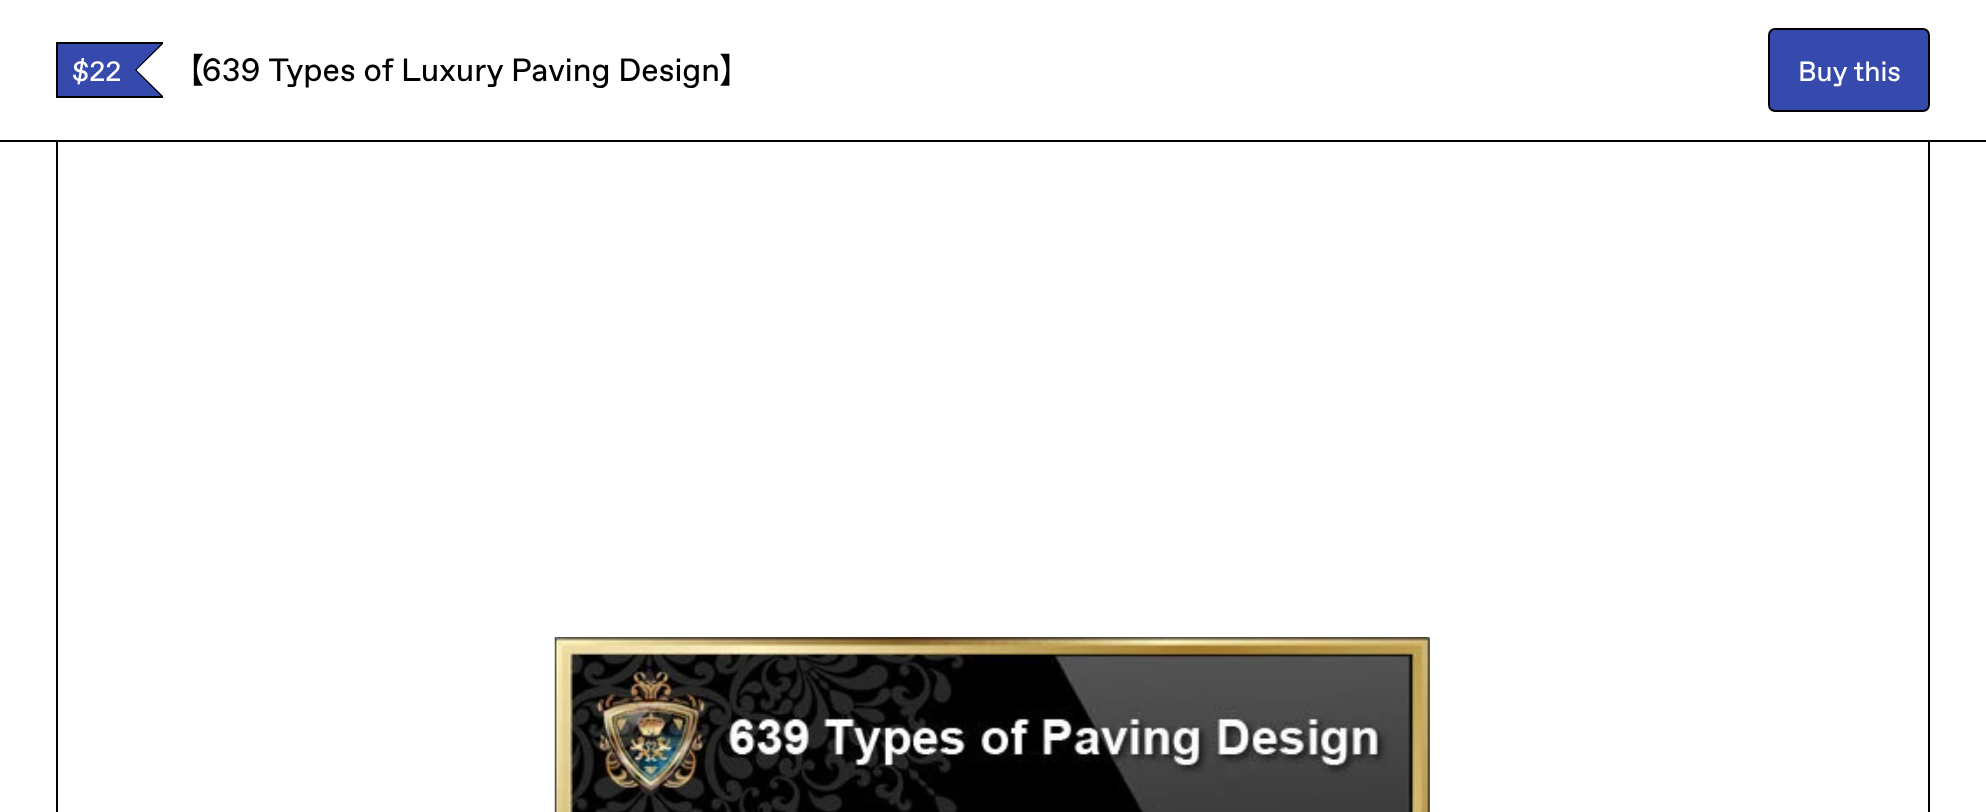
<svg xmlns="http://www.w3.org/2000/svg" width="1986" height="812">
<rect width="100%" height="100%" fill="#fff"/>
<rect x="57" y="113" width="1872" height="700" fill="none" stroke="#000" stroke-width="2"/>
<rect y="140" width="1986" height="2" fill="#000"/>
<rect x="56" y="112" width="1874" height="28" fill="#fff"/>
<rect x="56" y="42" width="107" height="2" fill="#000"/>
<rect x="56" y="96" width="107" height="2" fill="#000"/>
<rect x="56" y="42" width="2" height="56" fill="#000"/>
<rect x="58" y="44" width="77" height="52" fill="#364aae"/>
<path d="M135 44h28l-26.5 26zm28 52h-28l1.5-26z" fill="#000"/>
<rect x="135" y="68" width="2" height="4" fill="#000"/>
<path d="M133 44h28l-26 26zm28 52h-28l2-26z" fill="#364aae"/>
<text x="72" y="81" style="font-family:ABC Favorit;font-size:28px;fill:#fff">$22</text>
<text x="191" y="81" style="font-family:ABC Favorit;font-size:32.25px;fill:#000">【639 Types of Luxury Paving Design】</text>
<rect x="1769" y="29" width="160" height="82" rx="6" fill="#364aae" stroke="#000" stroke-width="2"/>
<text x="1798" y="81" style="font-family:ABC Favorit;font-size:28px;fill:#fff">Buy this</text>
<image x="554" y="637" width="876" height="175" href="media/1.png"/>
</svg>
